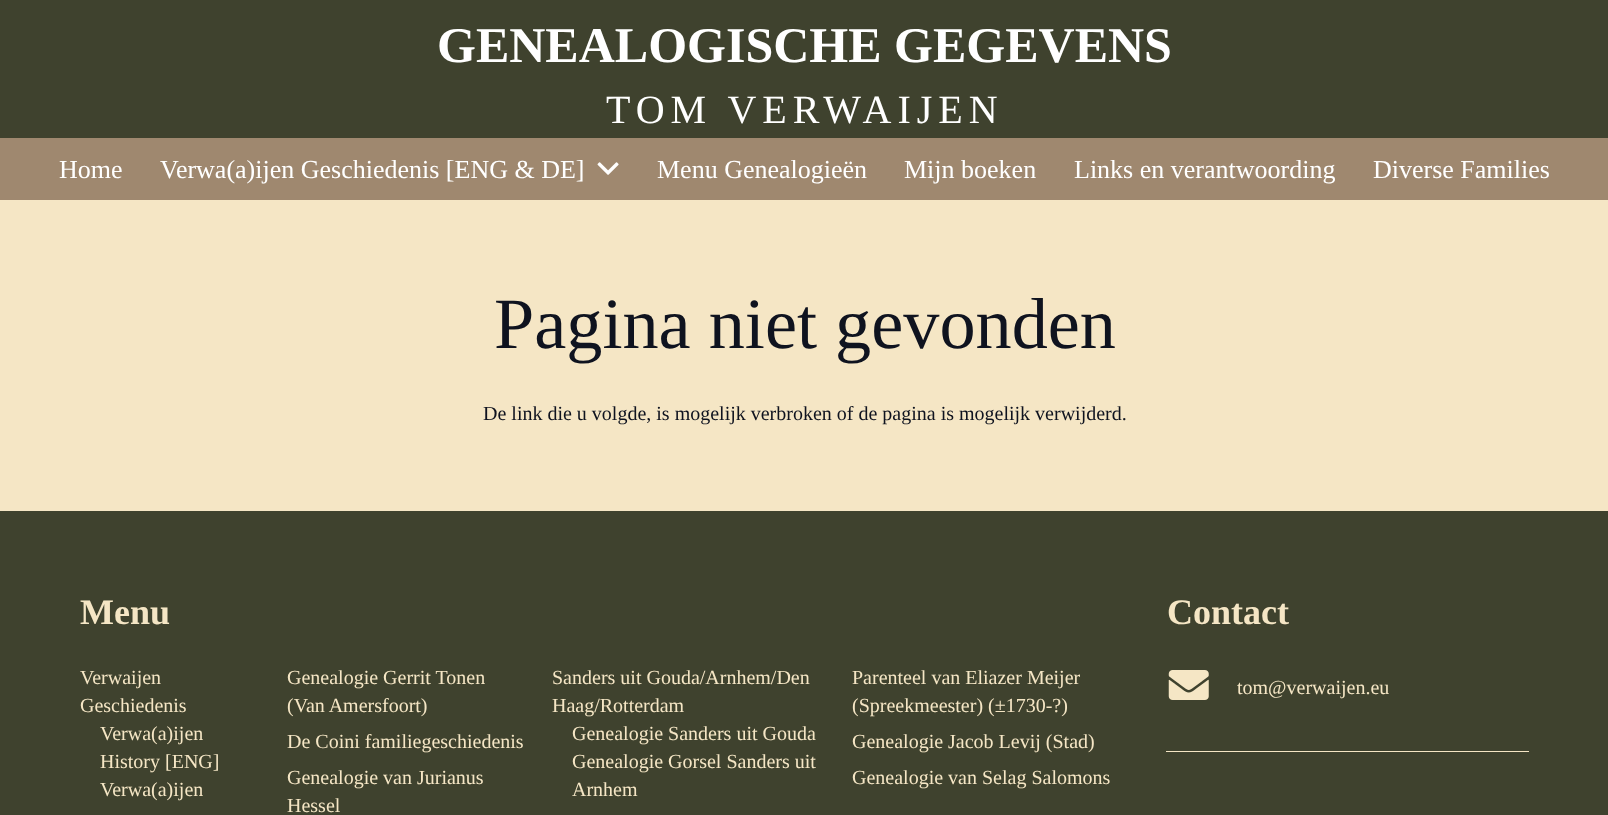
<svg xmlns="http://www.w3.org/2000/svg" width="1608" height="815">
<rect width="100%" height="100%" fill="#f5e6c5"/>
<rect width="1608" height="138" fill="#3f422e"/>
<text x="437" y="62" style="font-family:Liberation Serif;font-size:50px;font-weight:bold;fill:#fff">GENEALOGISCHE GEGEVENS</text>
<text x="606" y="123" style="font-family:Liberation Serif;font-size:40px;letter-spacing:6px;fill:#fff">TOM VERWAIJEN</text>
<rect y="138" width="1608" height="62" fill="#9f886f"/>
<text x="59" y="178" style="font-family:Liberation Serif;font-size:26px;fill:#fff">Home</text>
<text x="160" y="178" style="font-family:Liberation Serif;font-size:26px;fill:#fff">Verwa(a)ijen Geschiedenis [ENG &amp; DE]</text>
<image x="597" y="162" width="22" height="13" href="media/1.png"/>
<text x="657" y="178" style="font-family:Liberation Serif;font-size:26px;fill:#fff">Menu Genealogieën</text>
<text x="904" y="178" style="font-family:Liberation Serif;font-size:26px;fill:#fff">Mijn boeken</text>
<text x="1074" y="178" style="font-family:Liberation Serif;font-size:26px;fill:#fff">Links en verantwoording</text>
<text x="1373" y="178" style="font-family:Liberation Serif;font-size:26px;fill:#fff">Diverse Families</text>
<text x="494" y="348" style="font-family:Liberation Serif;font-size:72.25px;fill:#0f131f">Pagina niet gevonden</text>
<text x="483" y="420" style="font-family:Liberation Serif;font-size:20px;fill:#0f131f">De link die u volgde, is mogelijk verbroken of de pagina is mogelijk verwijderd.</text>
<rect y="511" width="1608" height="304" fill="#3f422e"/>
<text x="80" y="624" style="font-family:Liberation Serif;font-size:36px;font-weight:bold;fill:#f5e6c5">Menu</text>
<text x="80" y="684" style="font-family:Liberation Serif;font-size:20px;fill:#f5e6c5">Verwaijen</text>
<text x="80" y="712" style="font-family:Liberation Serif;font-size:20px;fill:#f5e6c5">Geschiedenis</text>
<text x="100" y="740" style="font-family:Liberation Serif;font-size:20px;fill:#f5e6c5">Verwa(a)ijen</text>
<text x="100" y="768" style="font-family:Liberation Serif;font-size:20px;fill:#f5e6c5">History [ENG]</text>
<text x="100" y="796" style="font-family:Liberation Serif;font-size:20px;fill:#f5e6c5">Verwa(a)ijen</text>
<text x="287" y="684" style="font-family:Liberation Serif;font-size:20px;fill:#f5e6c5">Genealogie Gerrit Tonen</text>
<text x="287" y="712" style="font-family:Liberation Serif;font-size:20px;fill:#f5e6c5">(Van Amersfoort)</text>
<text x="287" y="748" style="font-family:Liberation Serif;font-size:20px;fill:#f5e6c5">De Coini familiegeschiedenis</text>
<text x="287" y="784" style="font-family:Liberation Serif;font-size:20px;fill:#f5e6c5">Genealogie van Jurianus</text>
<text x="287" y="812" style="font-family:Liberation Serif;font-size:20px;fill:#f5e6c5">Hessel</text>
<text x="552" y="684" style="font-family:Liberation Serif;font-size:20px;fill:#f5e6c5">Sanders uit Gouda/Arnhem/Den</text>
<text x="552" y="712" style="font-family:Liberation Serif;font-size:20px;fill:#f5e6c5">Haag/Rotterdam</text>
<text x="572" y="740" style="font-family:Liberation Serif;font-size:20px;fill:#f5e6c5">Genealogie Sanders uit Gouda</text>
<text x="572" y="768" style="font-family:Liberation Serif;font-size:20px;fill:#f5e6c5">Genealogie Gorsel Sanders uit</text>
<text x="572" y="796" style="font-family:Liberation Serif;font-size:20px;fill:#f5e6c5">Arnhem</text>
<text x="852" y="684" style="font-family:Liberation Serif;font-size:20px;fill:#f5e6c5">Parenteel van Eliazer Meijer</text>
<text x="852" y="712" style="font-family:Liberation Serif;font-size:20px;fill:#f5e6c5">(Spreekmeester) (±1730-?)</text>
<text x="852" y="748" style="font-family:Liberation Serif;font-size:20px;fill:#f5e6c5">Genealogie Jacob Levij (Stad)</text>
<text x="852" y="784" style="font-family:Liberation Serif;font-size:20px;fill:#f5e6c5">Genealogie van Selag Salomons</text>
<text x="1167" y="624" style="font-family:Liberation Serif;font-size:36px;font-weight:bold;fill:#f5e6c5">Contact</text>
<image x="1168" y="670" width="41" height="30" href="media/2.png"/>
<text x="1237" y="694" style="font-family:Liberation Serif;font-size:20px;fill:#f5e6c5">tom@verwaijen.eu</text>
<rect x="1166" y="751" width="363" height="1" fill="#f5e6c5"/>
</svg>
